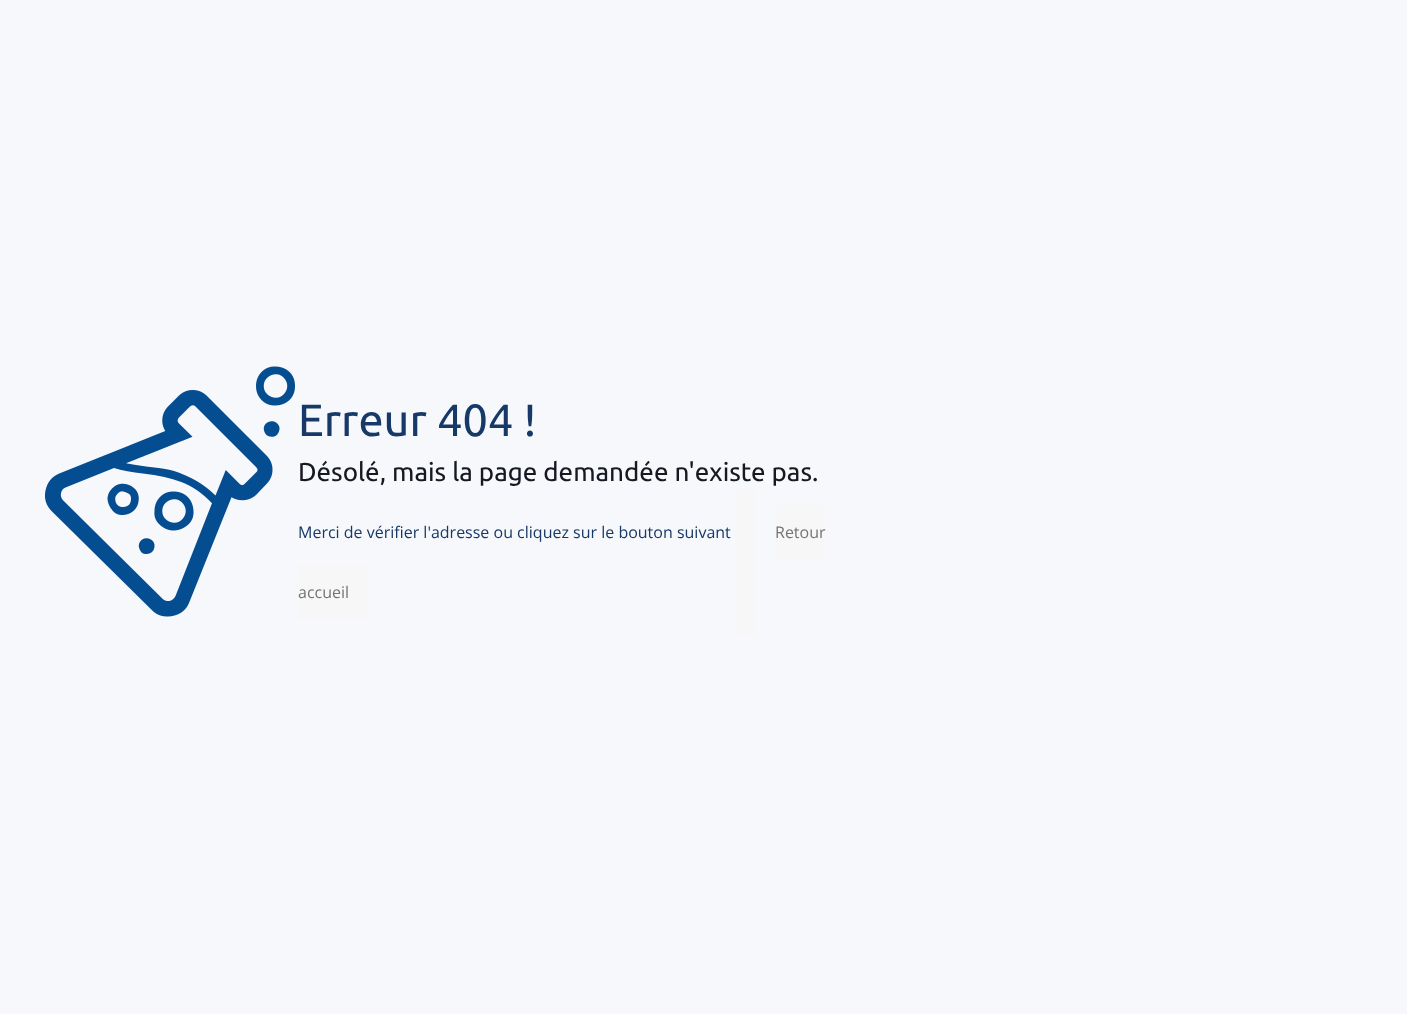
<svg xmlns="http://www.w3.org/2000/svg" width="1407" height="1014">
<rect width="100%" height="100%" fill="#f7f8fc"/>
<image x="45" y="366" width="250" height="251" href="media/1.png"/>
<text x="298" y="436" style="font-family:Ubuntu;font-size:45px;fill:#173967">Erreur 404 !</text>
<text x="298" y="481" style="font-family:Ubuntu;font-size:26px;fill:#161922">Désolé, mais la page demandée n'existe pas.</text>
<text x="298" y="538" style="font-family:Open Sans;font-size:16px;fill:#173967">Merci de vérifier l'adresse ou cliquez sur le bouton suivant</text>
<rect x="775" y="505" width="50" height="54" fill="#f7f7f7"/>
<text x="775" y="538" style="font-family:Open Sans;font-size:16px;fill:#747474">Retour</text>
<path d="M740 489h15v146h-15c-3 0-5-2-5-5v-136c0-3 2-5 5-5z" fill="#f7f7f7"/>
<path d="M298 565h66c3 0 5 2 5 5v44c0 3-2 5-5 5h-66z" fill="#f7f7f7"/>
<text x="298" y="598" style="font-family:Open Sans;font-size:16px;fill:#747474">accueil</text>
</svg>
